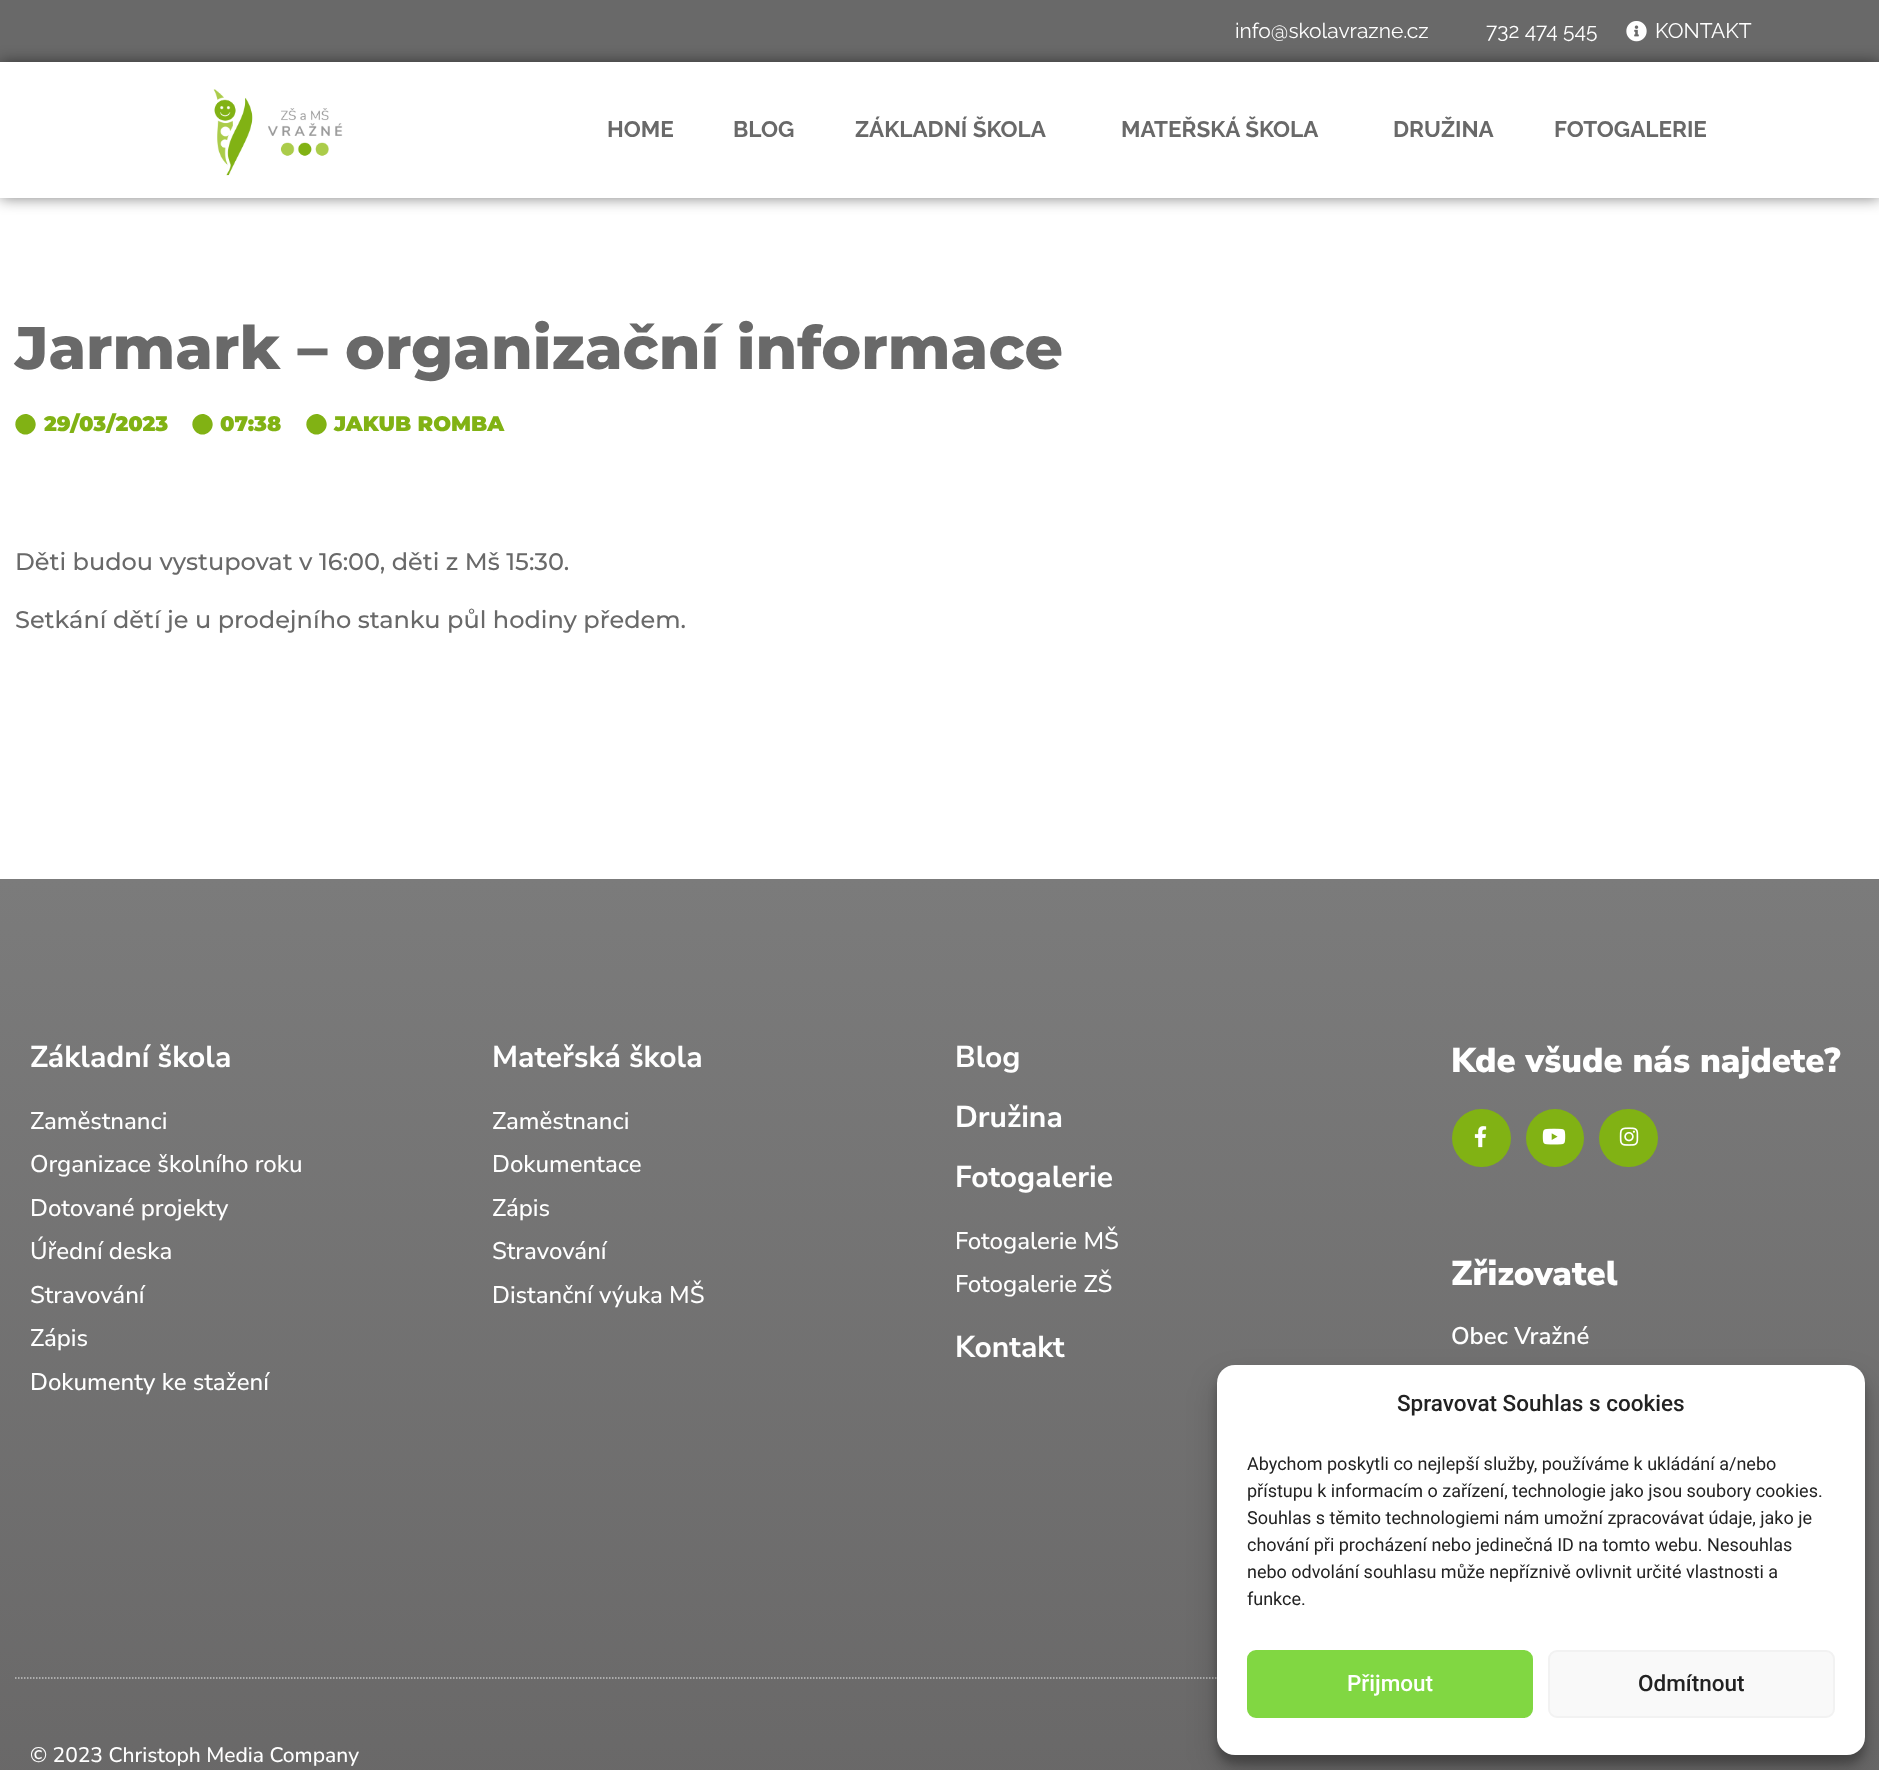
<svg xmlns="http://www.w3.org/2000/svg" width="1879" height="1770">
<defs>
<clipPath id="clip1"><path d="M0 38h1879v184h-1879zm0 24h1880v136h-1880z" clip-rule="evenodd"/></clipPath>
<linearGradient id="g1" gradientUnits="userSpaceOnUse" x1="940" y1="879" x2="940" y2="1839"><stop offset="0" stop-color="#7b7b7b"/><stop offset="1" stop-color="#686767"/></linearGradient>
</defs>
<rect width="100%" height="100%" fill="#fff"/>
<rect width="1879" height="62" fill="#696969"/>
<text x="1235" y="38" style="font-family:Raleway;font-size:21px;fill:#fff">info@skolavrazne.cz</text>
<text x="1486" y="38" style="font-family:Raleway;font-size:21px;fill:#fff">732 474 545</text>
<image x="1626" y="21" width="21" height="21" href="media/1.png"/>
<text x="1655" y="38" style="font-family:Raleway;font-size:21px;fill:#fff">KONTAKT</text>
<g clip-path="url(#clip1)">
<rect y="62" width="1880" height="136" fill="#00000080" filter="blur(7.5px)"/>
</g>
<image x="213" y="89" width="130" height="87" href="media/2.png"/>
<text x="607" y="137" style="font-family:Raleway;font-size:22.5px;font-weight:bold;fill:#696969">HOME</text>
<text x="733" y="137" style="font-family:Raleway;font-size:22.5px;font-weight:bold;fill:#696969">BLOG</text>
<text x="855" y="137" style="font-family:Raleway;font-size:22.5px;font-weight:bold;fill:#696969">ZÁKLADNÍ ŠKOLA</text>
<text x="1121" y="137" style="font-family:Raleway;font-size:22.5px;font-weight:bold;fill:#696969">MATEŘSKÁ ŠKOLA</text>
<text x="1393" y="137" style="font-family:Raleway;font-size:22.5px;font-weight:bold;fill:#696969">DRUŽINA</text>
<text x="1554" y="137" style="font-family:Raleway;font-size:22.5px;font-weight:bold;fill:#696969">FOTOGALERIE</text>
<text x="15" y="369" style="font-family:Montserrat;font-size:60px;font-weight:800;fill:#696969">Jarmark – organizační informace</text>
<path d="M18.5 417c9.5-9.5 23.5 5 14 14.5c-9.5 9.5-23.5-5-14-14.5z" fill="#81b214"/>
<text x="44" y="431" style="font-family:Montserrat;font-size:21px;font-weight:900;fill:#81b214">29/03/2023</text>
<path d="M195.5 417c9.5-9.5 23.5 5 14 14.5c-9.5 9.5-23.5-5-14-14.5z" fill="#81b214"/>
<text x="220" y="431" style="font-family:Montserrat;font-size:21px;font-weight:900;fill:#81b214">07:38</text>
<path d="M309.5 417c9.5-9.5 23.5 5 14 14.5c-9.5 9.5-23.5-5-14-14.5z" fill="#81b214"/>
<text x="334" y="431" style="font-family:Montserrat;font-size:21px;font-weight:900;fill:#81b214">JAKUB ROMBA</text>
<text x="15" y="570" style="font-family:Montserrat;font-size:24px;font-weight:500;fill:#696969">Děti budou vystupovat v 16:00, děti z Mš 15:30.</text>
<text x="15" y="628" style="font-family:Montserrat;font-size:24px;font-weight:500;fill:#696969">Setkání dětí je u prodejního stanku půl hodiny předem.</text>
<rect y="879" width="1879" height="891" fill="url(#g1)"/>
<text x="30" y="1067" style="font-family:Nunito Sans;font-size:30px;font-weight:bold;fill:#fff">Základní škola</text>
<text x="30" y="1129" style="font-family:Nunito Sans;font-size:24px;font-weight:500;fill:#fff">Zaměstnanci</text>
<text x="30" y="1172" style="font-family:Nunito Sans;font-size:24px;font-weight:500;fill:#fff">Organizace školního roku</text>
<text x="30" y="1216" style="font-family:Nunito Sans;font-size:24px;font-weight:500;fill:#fff">Dotované projekty</text>
<text x="30" y="1259" style="font-family:Nunito Sans;font-size:24px;font-weight:500;fill:#fff">Úřední deska</text>
<text x="30" y="1303" style="font-family:Nunito Sans;font-size:24px;font-weight:500;fill:#fff">Stravování</text>
<text x="30" y="1346" style="font-family:Nunito Sans;font-size:24px;font-weight:500;fill:#fff">Zápis</text>
<text x="30" y="1390" style="font-family:Nunito Sans;font-size:24px;font-weight:500;fill:#fff">Dokumenty ke stažení</text>
<text x="492" y="1067" style="font-family:Nunito Sans;font-size:30px;font-weight:bold;fill:#fff">Mateřská škola</text>
<text x="492" y="1129" style="font-family:Nunito Sans;font-size:24px;font-weight:500;fill:#fff">Zaměstnanci</text>
<text x="492" y="1172" style="font-family:Nunito Sans;font-size:24px;font-weight:500;fill:#fff">Dokumentace</text>
<text x="492" y="1216" style="font-family:Nunito Sans;font-size:24px;font-weight:500;fill:#fff">Zápis</text>
<text x="492" y="1259" style="font-family:Nunito Sans;font-size:24px;font-weight:500;fill:#fff">Stravování</text>
<text x="492" y="1303" style="font-family:Nunito Sans;font-size:24px;font-weight:500;fill:#fff">Distanční výuka MŠ</text>
<text x="955" y="1067" style="font-family:Nunito Sans;font-size:30px;font-weight:bold;fill:#fff">Blog</text>
<text x="955" y="1127" style="font-family:Nunito Sans;font-size:30px;font-weight:bold;fill:#fff">Družina</text>
<text x="955" y="1187" style="font-family:Nunito Sans;font-size:30px;font-weight:bold;fill:#fff">Fotogalerie</text>
<text x="955" y="1249" style="font-family:Nunito Sans;font-size:24px;font-weight:500;fill:#fff">Fotogalerie MŠ</text>
<text x="955" y="1292" style="font-family:Nunito Sans;font-size:24px;font-weight:500;fill:#fff">Fotogalerie ZŠ</text>
<text x="955" y="1357" style="font-family:Nunito Sans;font-size:30px;font-weight:bold;fill:#fff">Kontakt</text>
<text x="1451" y="1072" style="font-family:Nunito Sans;font-size:34.5px;font-weight:900;fill:#fff">Kde všude nás najdete?</text>
<rect x="1452" y="1109" width="59" height="58" rx="29" fill="#81b214"/>
<image x="1474" y="1126" width="13" height="22" href="media/3.png"/>
<circle cx="1555" cy="1138" r="29" fill="#81b214"/>
<image x="1542" y="1128" width="24" height="17" href="media/4.png"/>
<rect x="1599" y="1109" width="59" height="58" rx="29" fill="#81b214"/>
<image x="1619" y="1127" width="20" height="19" href="media/5.png"/>
<text x="1451" y="1285" style="font-family:Nunito Sans;font-size:34.5px;font-weight:900;fill:#fff">Zřizovatel</text>
<text x="1451" y="1344" style="font-family:Nunito Sans;font-size:24px;font-weight:600;fill:#fff">Obec Vražné</text>
<path d="M15 1678h1849.5" fill="none" stroke="#c2c2c2" stroke-width="1.5" stroke-dasharray="1.5 1.5"/>
<text x="30" y="1762" style="font-family:Nunito Sans;font-size:21px;font-weight:500;fill:#fff">© 2023 Christoph Media Company</text>
<rect x="1217" y="1374" width="648" height="390" rx="18" fill="#0000003b" filter="blur(4.5px)"/>
<rect x="1217" y="1380" width="648" height="390" rx="18" fill="#00000030" filter="blur(15px)"/>
<rect x="1217" y="1365" width="648" height="390" rx="18" fill="#fff"/>
<text x="1397" y="1411" style="font-family:Roboto;font-size:22.5px;font-weight:500;fill:#222">Spravovat Souhlas s cookies</text>
<text x="1247" y="1470" style="font-family:Roboto;font-size:18px;fill:#222">Abychom poskytli co nejlepší služby, používáme k ukládání a/nebo</text>
<text x="1247" y="1497" style="font-family:Roboto;font-size:18px;fill:#222">přístupu k informacím o zařízení, technologie jako jsou soubory cookies.</text>
<text x="1247" y="1524" style="font-family:Roboto;font-size:18px;fill:#222">Souhlas s těmito technologiemi nám umožní zpracovávat údaje, jako je</text>
<text x="1247" y="1551" style="font-family:Roboto;font-size:18px;fill:#222">chování při procházení nebo jedinečná ID na tomto webu. Nesouhlas</text>
<text x="1247" y="1578" style="font-family:Roboto;font-size:18px;fill:#222">nebo odvolání souhlasu může nepříznivě ovlivnit určité vlastnosti a</text>
<text x="1247" y="1605" style="font-family:Roboto;font-size:18px;fill:#222">funkce.</text>
<rect x="1248" y="1651" width="284" height="66" rx="8" fill="#81d742" stroke="#81d742" stroke-width="2"/>
<text x="1347" y="1691" style="font-family:Roboto;font-size:22.5px;font-weight:500;fill:#fff">Přijmout</text>
<rect x="1549" y="1651" width="285" height="66" rx="8" fill="#f9f9f9" stroke="#f2f2f2" stroke-width="2"/>
<text x="1638" y="1691" style="font-family:Roboto;font-size:22.5px;font-weight:500;fill:#222">Odmítnout</text>
</svg>
